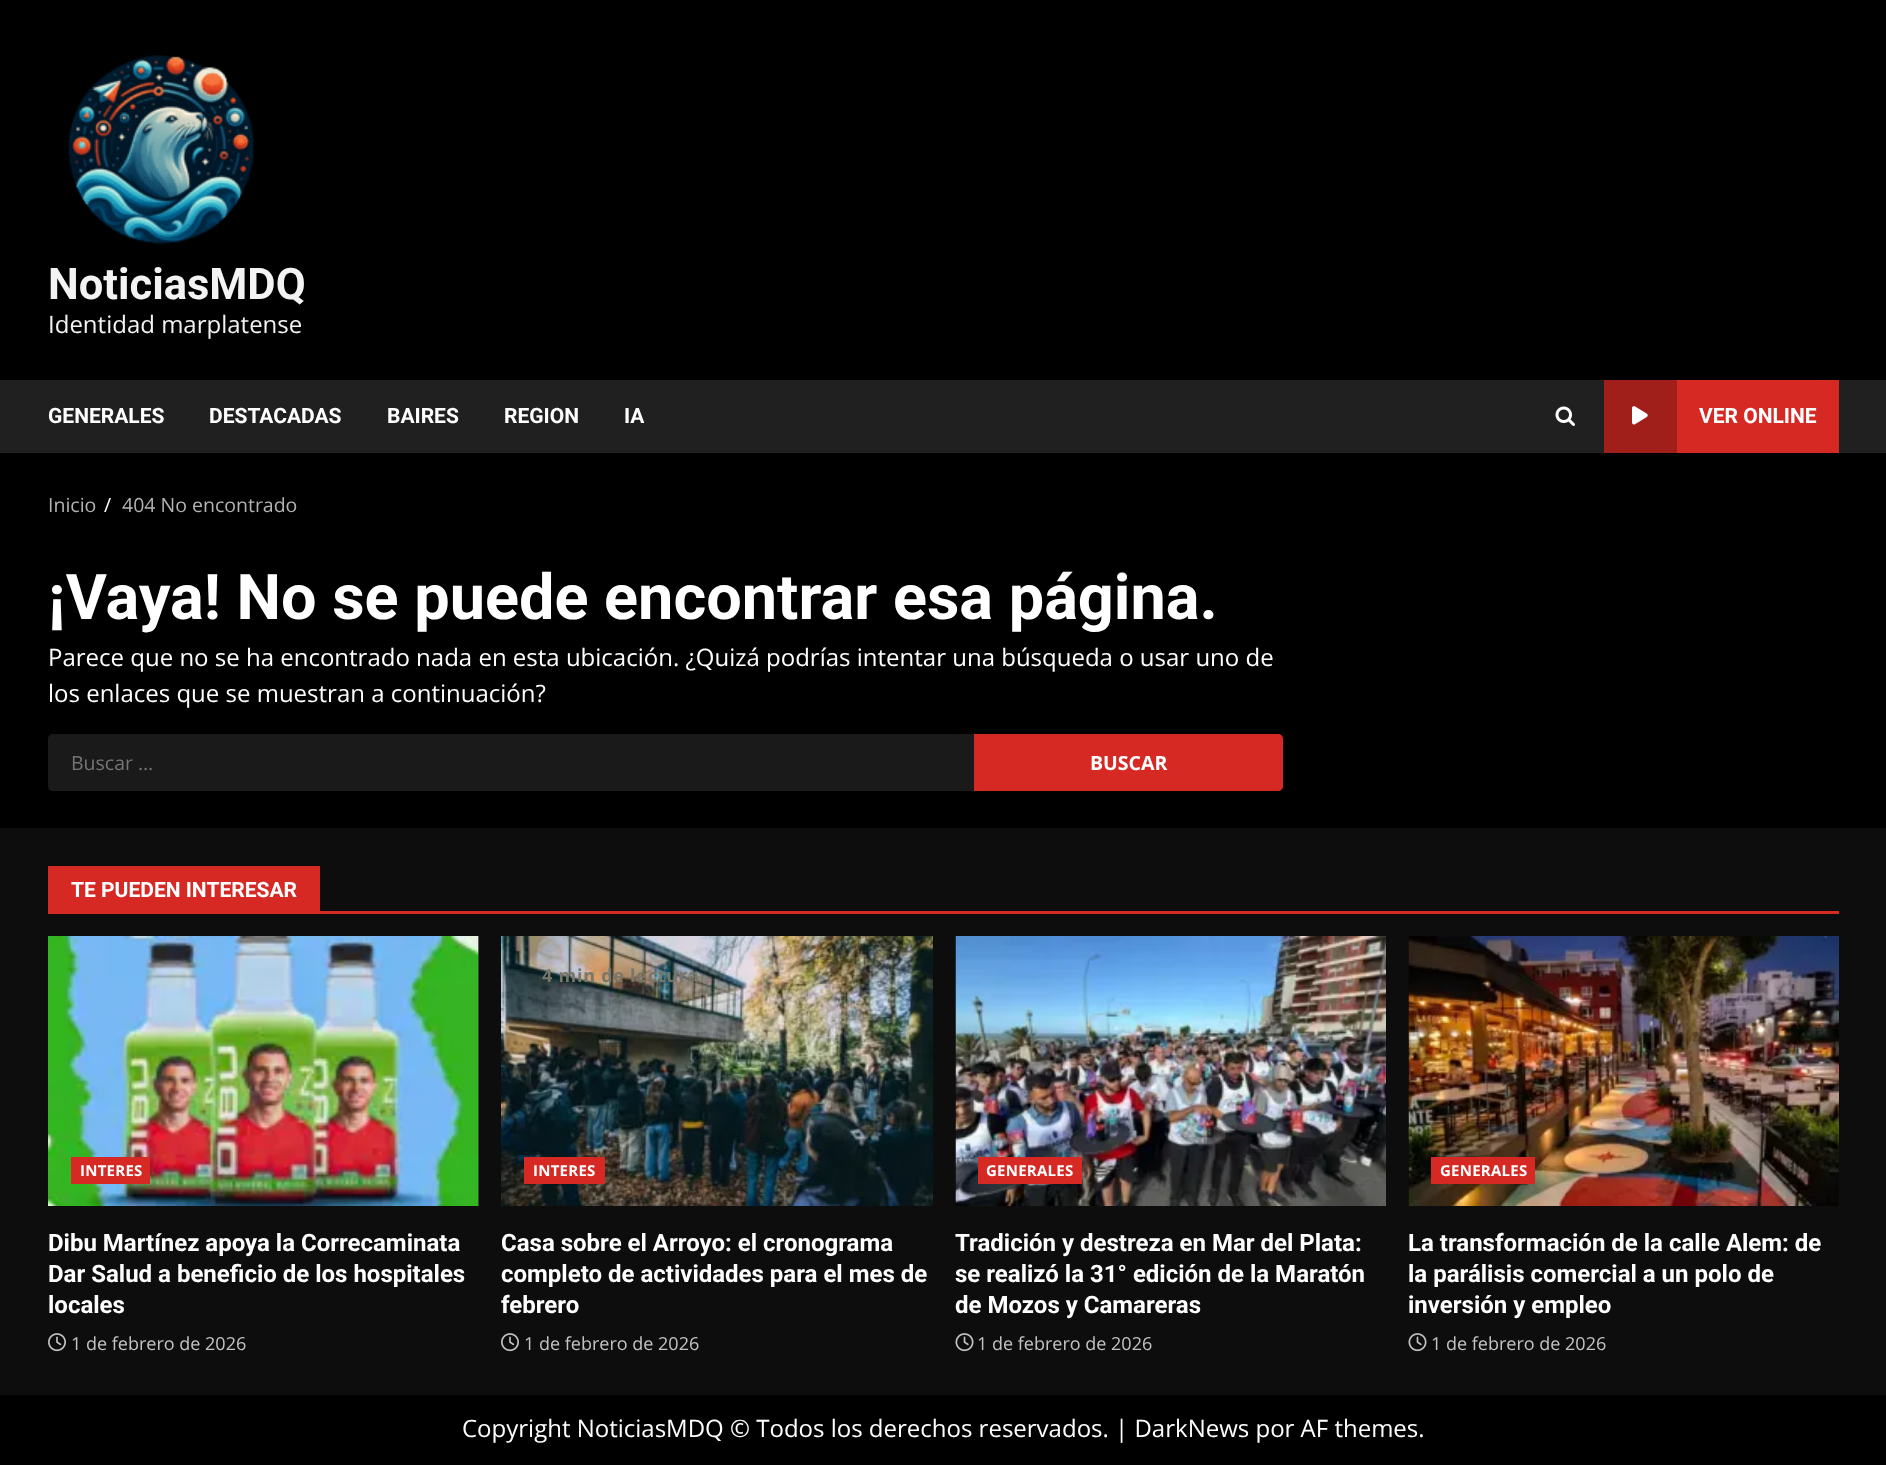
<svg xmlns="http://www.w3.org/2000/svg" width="1886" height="1465">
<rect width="100%" height="100%" fill="#000"/>
<image x="67" y="55" width="188" height="190" href="media/1.png"/>
<text x="48" y="299" style="font-family:Roboto;font-size:43.5px;font-weight:bold;fill:#f3f3f3">NoticiasMDQ</text>
<text x="48" y="333" style="font-family:Open Sans;font-size:24px;fill:#f3f3f3">Identidad marplatense</text>
<rect y="380" width="1886" height="73" fill="#202020"/>
<text x="48" y="423" style="font-family:Roboto;font-size:21px;font-weight:bold;fill:#fff">GENERALES</text>
<text x="209" y="423" style="font-family:Roboto;font-size:21px;font-weight:bold;fill:#fff">DESTACADAS</text>
<text x="387" y="423" style="font-family:Roboto;font-size:21px;font-weight:bold;fill:#fff">BAIRES</text>
<text x="504" y="423" style="font-family:Roboto;font-size:21px;font-weight:bold;fill:#fff">REGION</text>
<text x="624" y="423" style="font-family:Roboto;font-size:21px;font-weight:bold;fill:#fff">IA</text>
<image x="1555" y="406" width="20" height="20" href="media/2.png"/>
<rect x="1677" y="380" width="162" height="73" fill="#d72924"/>
<rect x="1604" y="380" width="73" height="73" fill="#a11f1b"/>
<image x="1632" y="406" width="16" height="19" href="media/3.png"/>
<text x="1699" y="423" style="font-family:Roboto;font-size:21px;font-weight:bold;fill:#fff">VER ONLINE</text>
<text x="48" y="512" style="font-family:Open Sans;font-size:19.5px;fill:#b3b3b3">Inicio</text>
<text x="104" y="512" style="font-family:Open Sans;font-size:19.5px;fill:#fff">/</text>
<text x="122" y="512" style="font-family:Open Sans;font-size:19.5px;fill:#b3b3b3">404 No encontrado</text>
<text x="48" y="619" style="font-family:Roboto;font-size:63px;font-weight:bold;fill:#fff">¡Vaya! No se puede encontrar esa página.</text>
<text x="48" y="666" style="font-family:Open Sans;font-size:24px;fill:#fff">Parece que no se ha encontrado nada en esta ubicación. ¿Quizá podrías intentar una búsqueda o usar uno de</text>
<text x="48" y="702" style="font-family:Open Sans;font-size:24px;fill:#fff">los enlaces que se muestran a continuación?</text>
<path d="M53 734h921v57h-921c-3 0-5-2-5-5v-47c0-3 2-5 5-5z" fill="#1a1a1a"/>
<text x="71" y="770" style="font-family:Open Sans;font-size:19.5px;fill:#757575">Buscar …</text>
<path d="M974 734h304c3 0 5 2 5 5v47c0 3-2 5-5 5h-304z" fill="#d72924"/>
<text x="1090" y="770" style="font-family:Open Sans;font-size:19.5px;font-weight:bold;fill:#fff">BUSCAR</text>
<rect y="828" width="1886" height="567" fill="#0d0d0d"/>
<rect x="48" y="911" width="1791" height="3" fill="#d72924"/>
<rect x="48" y="866" width="272" height="45" fill="#d72924"/>
<text x="71" y="897" style="font-family:Roboto;font-size:21px;font-weight:bold;fill:#fff">TE PUEDEN INTERESAR</text>
<rect x="478" y="936" width="1" height="270" fill="#313131"/>
<image x="48" y="936" width="431" height="270" href="media/4.png"/>
<rect x="71" y="1157" width="79" height="27" fill="#d72924"/>
<text x="80" y="1176" style="font-family:Open Sans;font-size:15px;font-weight:bold;letter-spacing:0.25px;fill:#fff">INTERES</text>
<text x="48" y="1251" style="font-family:Roboto;font-size:24px;font-weight:bold;fill:#fff">Dibu Martínez apoya la Correcaminata</text>
<text x="48" y="1282" style="font-family:Roboto;font-size:24px;font-weight:bold;fill:#fff">Dar Salud a beneficio de los hospitales</text>
<text x="48" y="1313" style="font-family:Roboto;font-size:24px;font-weight:bold;fill:#fff">locales</text>
<image x="48" y="1333" width="18" height="19" href="media/5.png"/>
<text x="71" y="1350" style="font-family:Open Sans;font-size:18px;fill:#c3c3c3">1 de febrero de 2026</text>
<image x="501" y="936" width="432" height="270" href="media/6.png"/>
<text x="542" y="982" style="font-family:Open Sans;font-size:18px;font-weight:bold;letter-spacing:0.75px;fill:#79766a">4 min de lectura</text>
<rect x="524" y="1157" width="81" height="27" fill="#d72924"/>
<text x="533" y="1176" style="font-family:Open Sans;font-size:15px;font-weight:bold;letter-spacing:0.25px;fill:#fff">INTERES</text>
<text x="501" y="1251" style="font-family:Roboto;font-size:24px;font-weight:bold;fill:#fff">Casa sobre el Arroyo: el cronograma</text>
<text x="501" y="1282" style="font-family:Roboto;font-size:24px;font-weight:bold;fill:#fff">completo de actividades para el mes de</text>
<text x="501" y="1313" style="font-family:Roboto;font-size:24px;font-weight:bold;fill:#fff">febrero</text>
<image x="501" y="1333" width="18" height="19" href="media/5.png"/>
<text x="524" y="1350" style="font-family:Open Sans;font-size:18px;fill:#c3c3c3">1 de febrero de 2026</text>
<image x="955" y="936" width="431" height="270" href="media/7.png"/>
<rect x="978" y="1157" width="104" height="27" fill="#d72924"/>
<text x="986" y="1176" style="font-family:Open Sans;font-size:15px;font-weight:bold;letter-spacing:0.25px;fill:#fff">GENERALES</text>
<text x="955" y="1251" style="font-family:Roboto;font-size:24px;font-weight:bold;fill:#fff">Tradición y destreza en Mar del Plata:</text>
<text x="955" y="1282" style="font-family:Roboto;font-size:24px;font-weight:bold;fill:#fff">se realizó la 31° edición de la Maratón</text>
<text x="955" y="1313" style="font-family:Roboto;font-size:24px;font-weight:bold;fill:#fff">de Mozos y Camareras</text>
<image x="955" y="1333" width="19" height="19" href="media/8.png"/>
<text x="977" y="1350" style="font-family:Open Sans;font-size:18px;fill:#c3c3c3">1 de febrero de 2026</text>
<image x="1408" y="936" width="431" height="270" href="media/9.png"/>
<rect x="1431" y="1157" width="104" height="27" fill="#d72924"/>
<text x="1440" y="1176" style="font-family:Open Sans;font-size:15px;font-weight:bold;letter-spacing:0.25px;fill:#fff">GENERALES</text>
<text x="1408" y="1251" style="font-family:Roboto;font-size:24px;font-weight:bold;fill:#fff">La transformación de la calle Alem: de</text>
<text x="1408" y="1282" style="font-family:Roboto;font-size:24px;font-weight:bold;fill:#fff">la parálisis comercial a un polo de</text>
<text x="1408" y="1313" style="font-family:Roboto;font-size:24px;font-weight:bold;fill:#fff">inversión y empleo</text>
<image x="1408" y="1333" width="19" height="19" href="media/8.png"/>
<text x="1431" y="1350" style="font-family:Open Sans;font-size:18px;fill:#c3c3c3">1 de febrero de 2026</text>
<text x="462" y="1437" style="font-family:Open Sans;font-size:24px;fill:#fff">Copyright NoticiasMDQ © Todos los derechos reservados. | DarkNews por AF themes.</text>
</svg>
